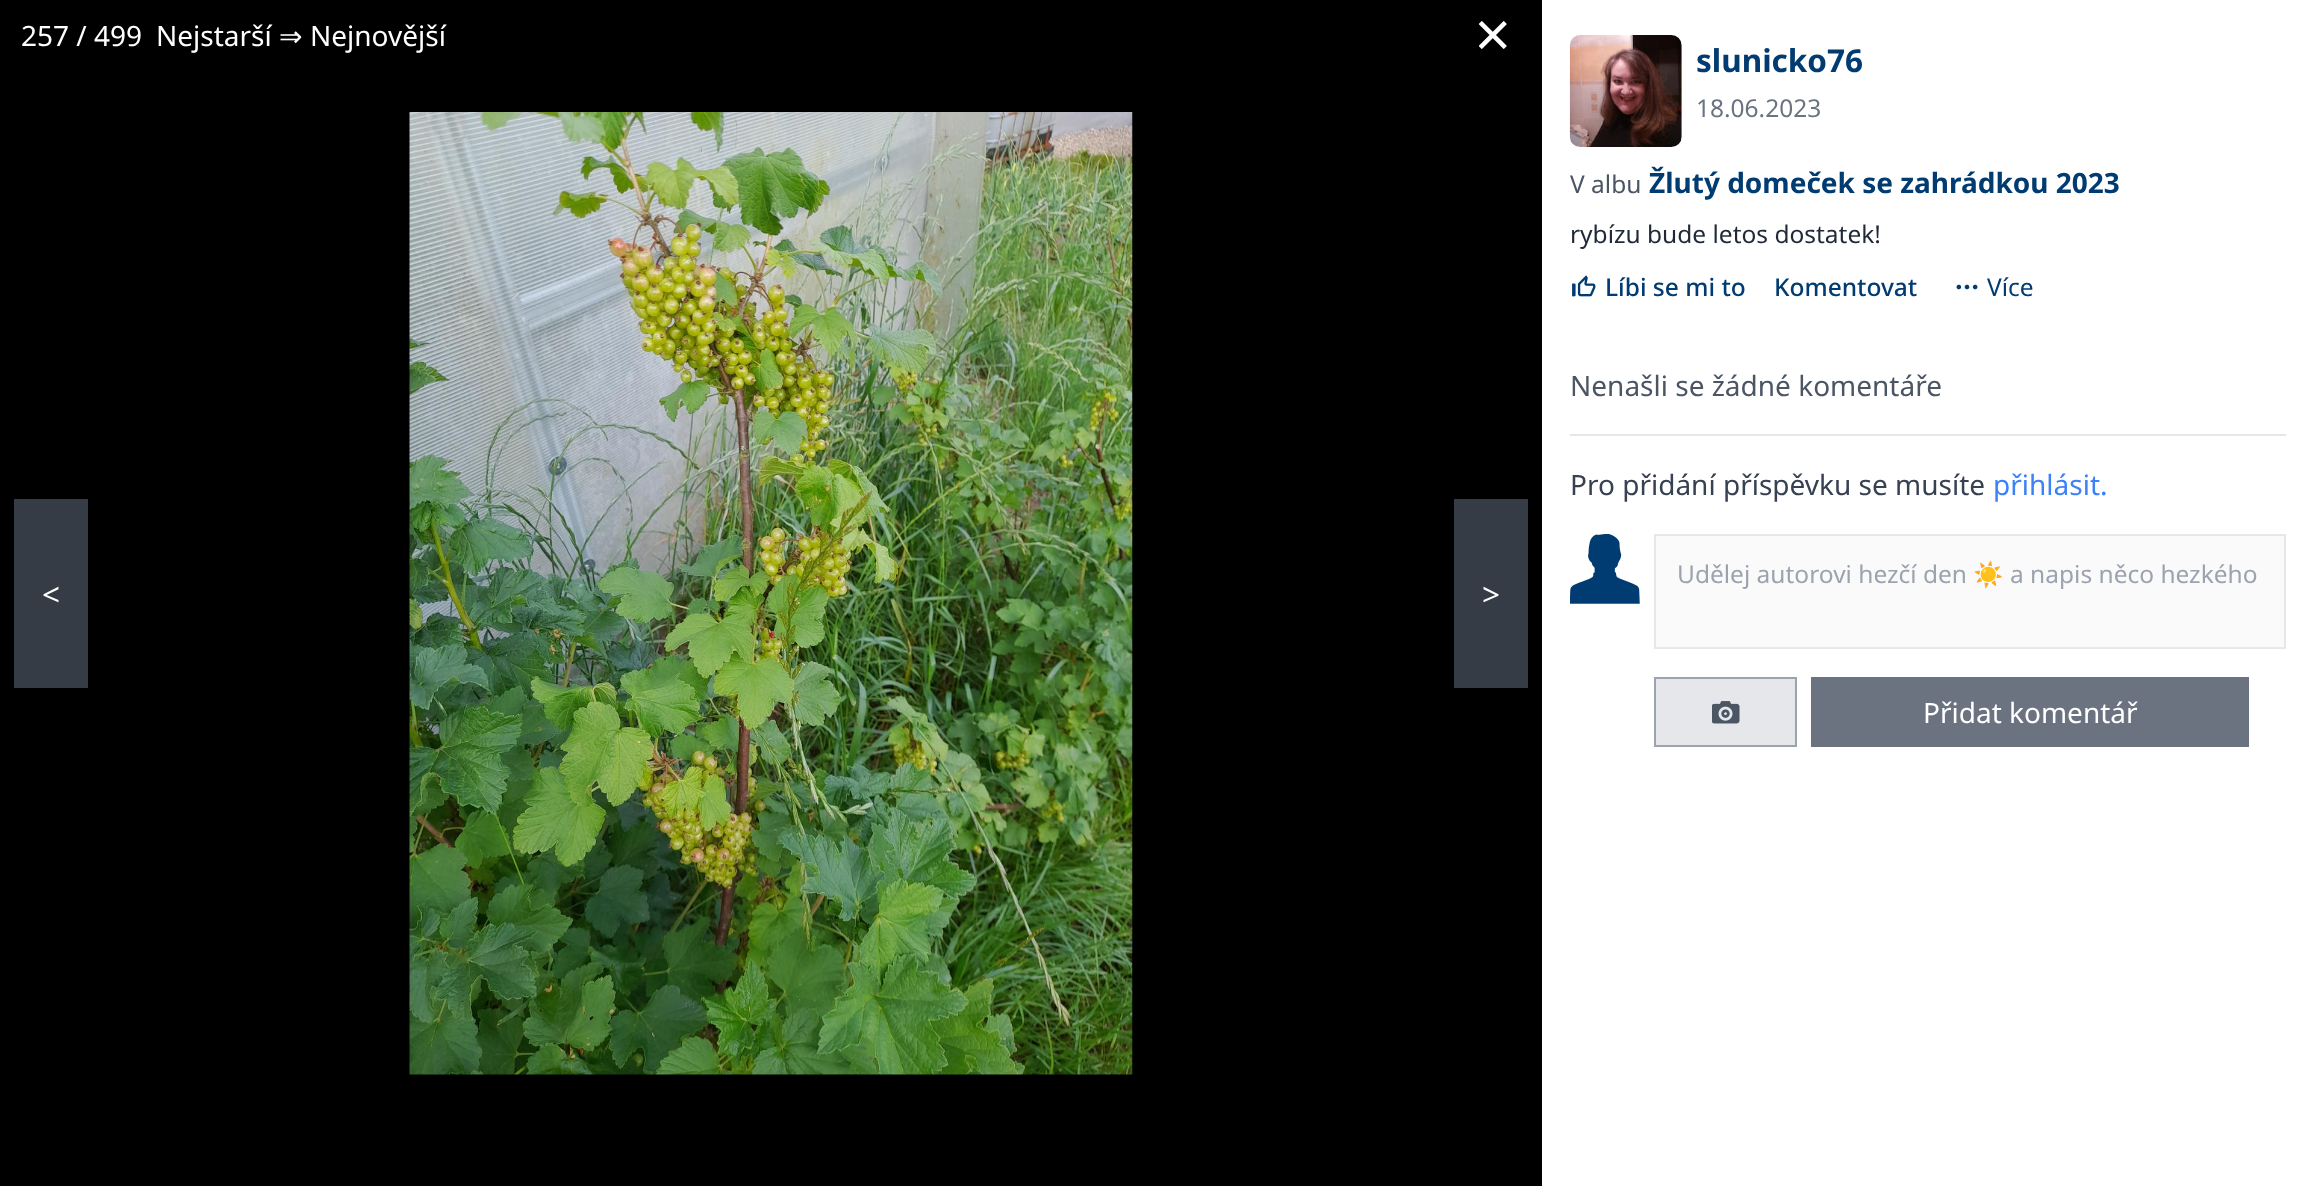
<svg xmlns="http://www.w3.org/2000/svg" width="2312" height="1186">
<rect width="100%" height="100%" fill="#fff"/>
<rect width="1542" height="1186" fill="#000"/>
<text x="21" y="46" style="font-family:Noto Sans;font-size:28px;fill:#fff">257 / 499</text>
<text x="156" y="46" style="font-family:Noto Sans;font-size:28px;fill:#fff">Nejstarší</text>
<text x="279" y="46" style="font-family:DejaVu Sans;font-size:28px;fill:#fff">⇒</text>
<text x="310" y="46" style="font-family:Noto Sans;font-size:28px;fill:#fff">Nejnovější</text>
<image x="1479" y="21" width="28" height="28" href="media/1.png"/>
<rect x="14" y="499" width="74" height="189" fill="#353c45"/>
<text x="42" y="606" style="font-family:Noto Sans;font-size:31.5px;fill:#fff">&lt;</text>
<image x="409" y="112" width="724" height="963" href="media/2.png"/>
<rect x="1454" y="499" width="74" height="189" fill="#353c45"/>
<text x="1482" y="606" style="font-family:Noto Sans;font-size:31.5px;fill:#fff">&gt;</text>
<image x="1569" y="35" width="113" height="112" href="media/3.png"/>
<text x="1696" y="72" style="font-family:Noto Sans;font-size:31.5px;font-weight:bold;fill:#003b71">slunicko76</text>
<text x="1696" y="117" style="font-family:Noto Sans;font-size:24.5px;fill:#6b7280">18.06.2023</text>
<text x="1570" y="193" style="font-family:Noto Sans;font-size:24.5px;fill:#4b5563">V albu</text>
<text x="1649" y="193" style="font-family:Noto Sans;font-size:28px;font-weight:bold;fill:#003b71">Žlutý domeček se zahrádkou 2023</text>
<text x="1570" y="243" style="font-family:Noto Sans;font-size:24.5px;fill:#1f2937">rybízu bude letos dostatek!</text>
<image x="1572" y="275" width="24" height="22" href="media/4.png"/>
<text x="1605" y="296" style="font-family:Noto Sans;font-size:24.5px;font-weight:500;fill:#003b71">Líbi se mi to</text>
<text x="1774" y="296" style="font-family:Noto Sans;font-size:24.5px;font-weight:500;fill:#003b71">Komentovat</text>
<image x="1956" y="284" width="22" height="6" href="media/5.png"/>
<text x="1987" y="296" style="font-family:Noto Sans;font-size:24.5px;fill:#003b71">Více</text>
<text x="1570" y="396" style="font-family:Noto Sans;font-size:28px;fill:#4b5563">Nenašli se žádné komentáře</text>
<rect x="1570" y="434" width="716" height="2" fill="#e5e7eb"/>
<text x="1570" y="495" style="font-family:Noto Sans;font-size:28px;fill:#374151">Pro přidání příspěvku se musíte</text>
<text x="1993" y="495" style="font-family:Noto Sans;font-size:28px;fill:#3b82f6">přihlásit.</text>
<image x="1570" y="534" width="70" height="70" href="media/6.png"/>
<rect x="1655" y="535" width="630" height="113" fill="none" stroke="#e5e7eb" stroke-width="2"/>
<rect x="1656" y="536" width="628" height="112" fill="#efefef4d"/>
<text x="1677" y="583" style="font-family:Noto Sans;font-size:24.5px;fill:#9ca3af">Udělej autorovi hezčí den</text>
<text x="1973" y="583" style="font-family:Noto Color Emoji;font-size:24.5px;fill:#9ca3af">☀️</text>
<text x="2010" y="583" style="font-family:Noto Sans;font-size:24.5px;fill:#9ca3af">a napis něco hezkého</text>
<rect x="1655" y="678" width="141" height="68" fill="#e5e7eb" stroke="#9ca3af" stroke-width="2"/>
<image x="1712" y="701" width="28" height="23" href="media/7.png"/>
<rect x="1811" y="677" width="438" height="70" fill="#6b7280"/>
<text x="1923" y="723" style="font-family:Noto Sans;font-size:28px;fill:#fff">Přidat komentář</text>
</svg>
